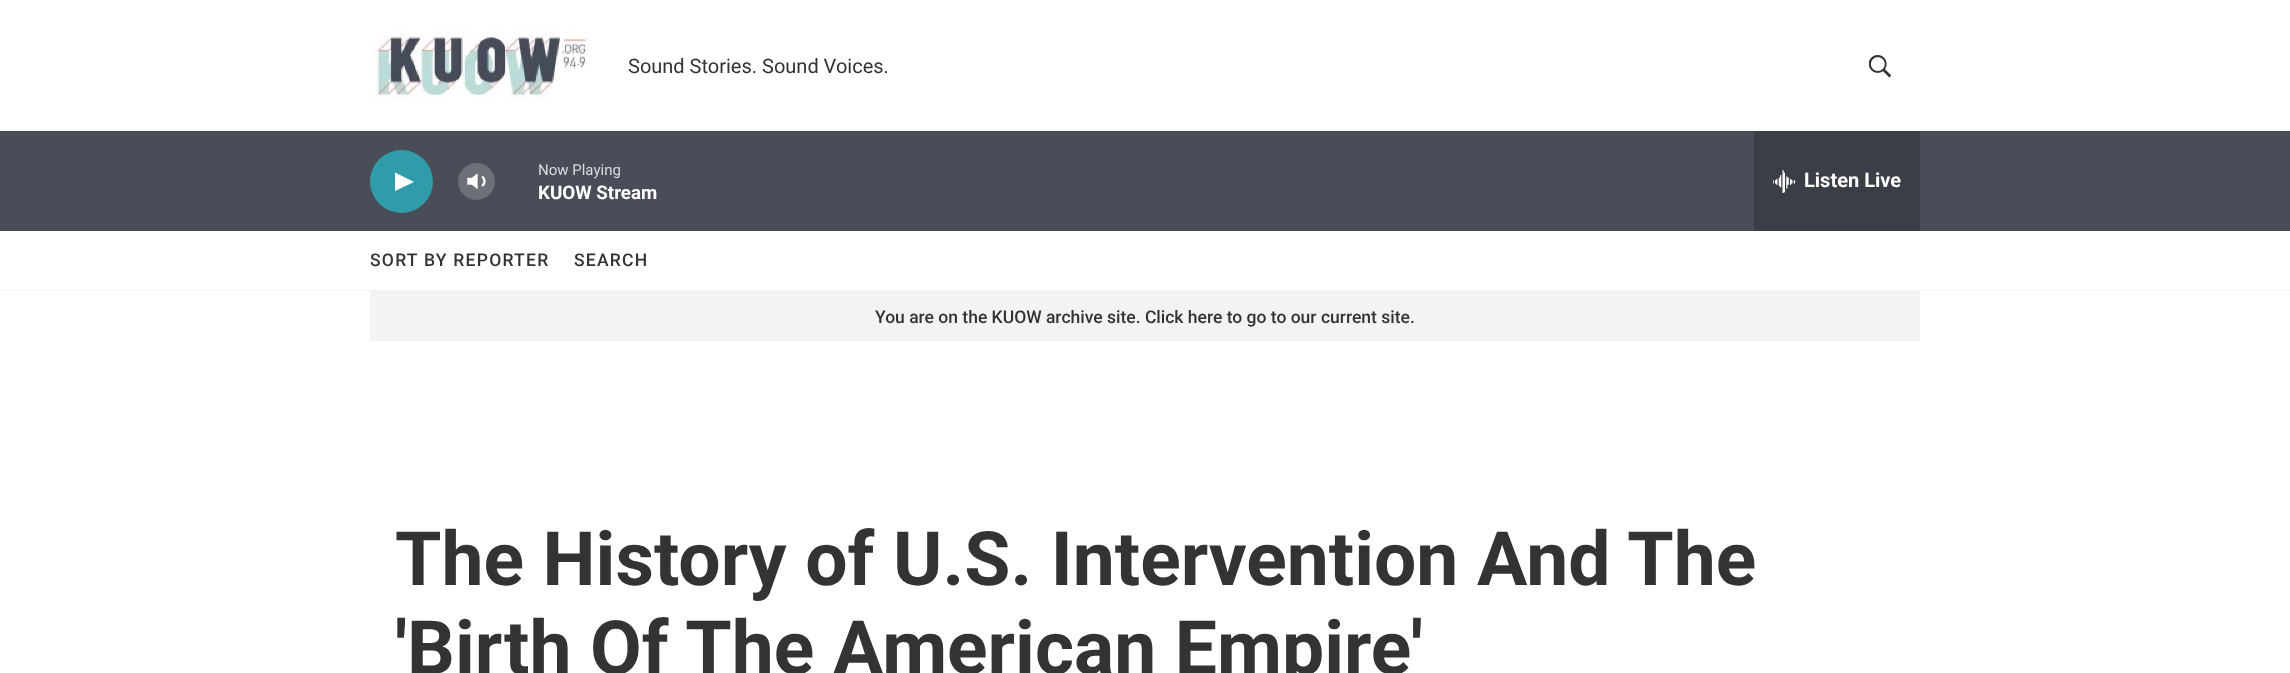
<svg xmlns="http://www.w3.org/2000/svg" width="2290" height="673">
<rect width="100%" height="100%" fill="#fff"/>
<rect y="290" width="2290" height="1" fill="#f5f5f5"/>
<image x="370" y="29" width="220" height="71" href="media/1.png"/>
<text x="628" y="73" style="font-family:Roboto;font-size:20px;fill:#333">Sound Stories. Sound Voices.</text>
<image x="1869" y="55" width="22" height="23" href="media/2.png"/>
<rect y="131" width="2290" height="100" fill="#494d58"/>
<circle cx="401.5" cy="181.5" r="31.5" fill="#309ca9"/>
<path d="M395 172.5l19 9.5l-19 9z" fill="#fff"/>
<image x="467" y="173" width="19" height="17" href="media/3.png"/>
<circle cx="476.5" cy="181.5" r="18.5" fill="#ffffff33"/>
<text x="538" y="175" style="font-family:Roboto;font-size:15px;fill:#dbdbde">Now Playing</text>
<text x="538" y="199" style="font-family:'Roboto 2';font-size:18.75px;font-weight:bold;fill:#fff">KUOW Stream</text>
<rect x="1754" y="131" width="166" height="100" fill="#3a3e46"/>
<image x="1773" y="170" width="22" height="23" href="media/4.png"/>
<text x="1804" y="187" style="font-family:'Roboto 2';font-size:20px;font-weight:bold;fill:#fff">Listen Live</text>
<text x="370" y="266" style="font-family:Roboto;font-size:17.5px;font-weight:500;letter-spacing:1.25px;fill:#333">SORT BY REPORTER</text>
<text x="574" y="266" style="font-family:Roboto;font-size:17.5px;font-weight:500;letter-spacing:1.25px;fill:#333">SEARCH</text>
<rect x="370" y="291" width="1550" height="50" fill="#f3f3f3"/>
<text x="875" y="323" style="font-family:Roboto;font-size:17.5px;font-weight:500;fill:#333">You are on the KUOW archive site. Click here to go to our current site.</text>
<text x="395" y="585" style="font-family:Roboto;font-size:75px;font-weight:bold;fill:#333">The History of U.S. Intervention And The</text>
<text x="395" y="674" style="font-family:Roboto;font-size:75px;font-weight:bold;fill:#333">'Birth Of The American Empire'</text>
</svg>
